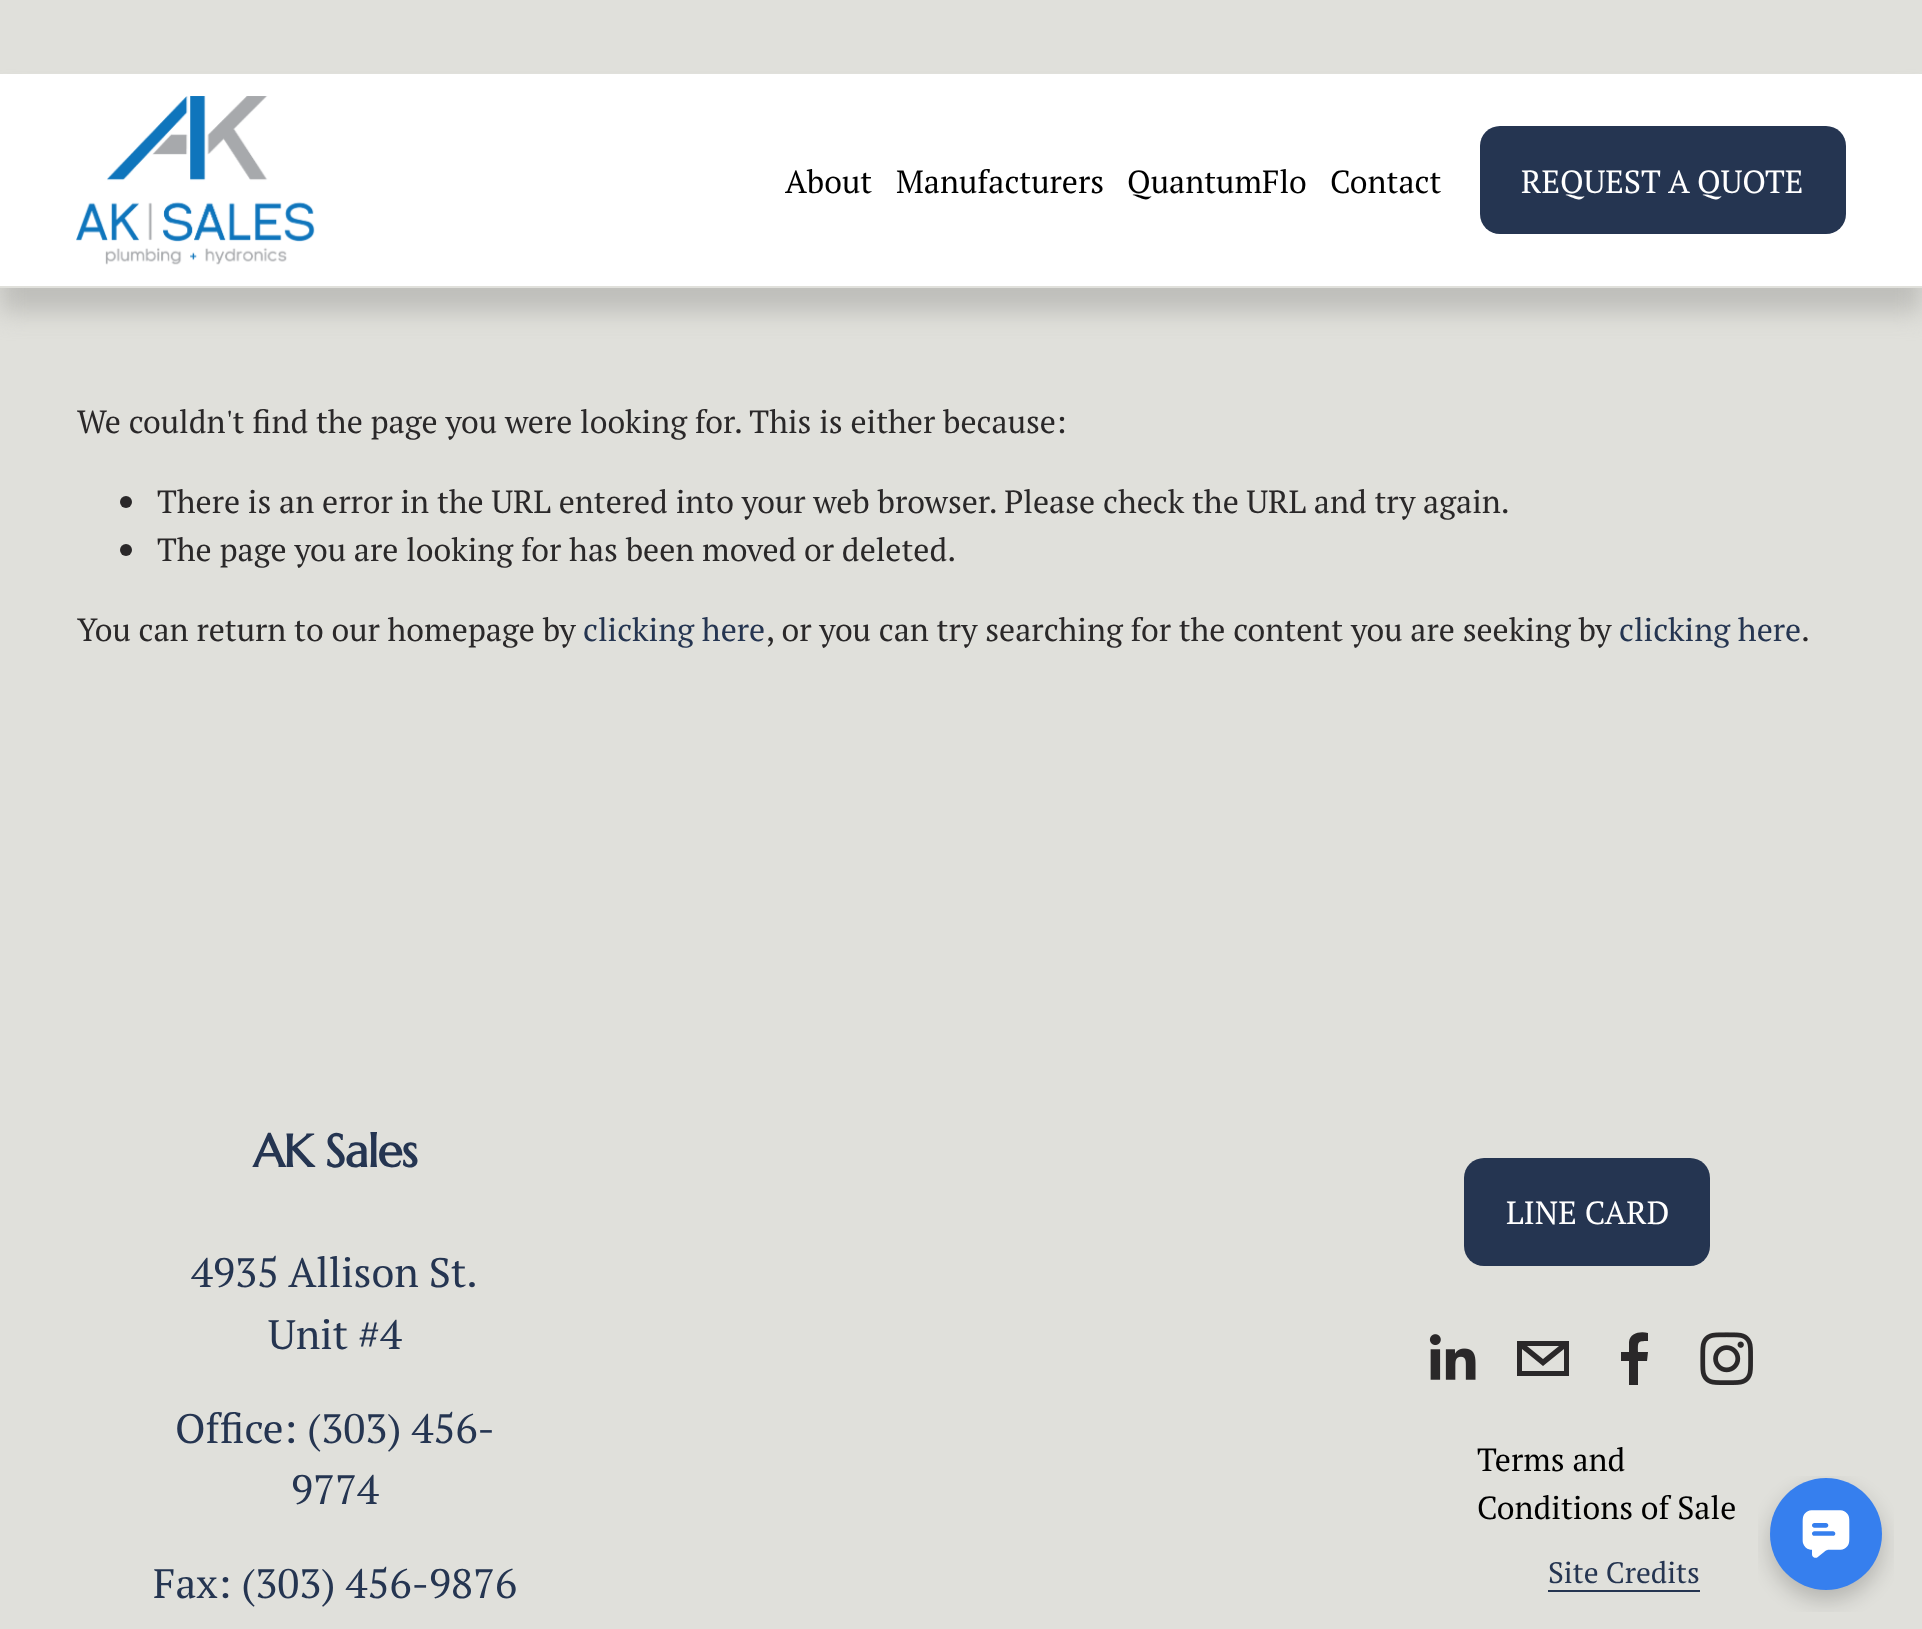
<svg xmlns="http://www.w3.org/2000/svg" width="1922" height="1629">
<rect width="100%" height="100%" fill="#e0e0db"/>
<rect y="98" width="1922" height="214" fill="#bebeba" filter="blur(12px)"/>
<rect y="74" width="1922" height="212" fill="#fff"/>
<image x="76" y="96" width="239" height="169" href="media/1.png"/>
<text x="785" y="193" style="font-family:PT Serif;font-size:32px;fill:#000">About</text>
<text x="896" y="193" style="font-family:PT Serif;font-size:32px;fill:#000">Manufacturers</text>
<text x="1127" y="193" style="font-family:PT Serif;font-size:32px;fill:#000">QuantumFlo</text>
<text x="1330" y="193" style="font-family:PT Serif;font-size:32px;fill:#000">Contact</text>
<rect x="1480" y="126" width="366" height="108" rx="20" fill="#253551"/>
<text x="1521" y="193" style="font-family:PT Serif;font-size:32px;fill:#fff">REQUEST A QUOTE</text>
<rect y="286" width="1922" height="2" fill="#e0e0db"/>
<text x="77" y="433" style="font-family:PT Serif;font-size:32px;fill:#2a2829">We couldn't find the page you were looking for. This is either because:</text>
<circle cx="126" cy="502" r="6" fill="#2a2829"/>
<text x="157" y="513" style="font-family:PT Serif;font-size:32px;fill:#2a2829">There is an error in the URL entered into your web browser. Please check the URL and try again.</text>
<circle cx="126" cy="550" r="6" fill="#2a2829"/>
<text x="157" y="561" style="font-family:PT Serif;font-size:32px;fill:#2a2829">The page you are looking for has been moved or deleted.</text>
<text x="77" y="641" style="font-family:PT Serif;font-size:32px;fill:#2a2829">You can return to our homepage by</text>
<text x="583" y="641" style="font-family:PT Serif;font-size:32px;fill:#253551">clicking here</text>
<text x="766" y="641" style="font-family:PT Serif;font-size:32px;fill:#2a2829">, or you can try searching for the content you are seeking by</text>
<text x="1619" y="641" style="font-family:PT Serif;font-size:32px;fill:#253551">clicking here</text>
<text x="1801" y="641" style="font-family:PT Serif;font-size:32px;fill:#2a2829">.</text>
<text x="253" y="1167" style="font-family:Marcellus;font-size:46px;font-weight:bold;letter-spacing:-1px;fill:#253551">AK Sales</text>
<text x="191" y="1287" style="font-family:PT Serif;font-size:41.25px;fill:#253551">4935 Allison St.</text>
<text x="268" y="1349" style="font-family:PT Serif;font-size:41.25px;fill:#253551">Unit #4</text>
<text x="175" y="1443" style="font-family:PT Serif;font-size:41.25px;fill:#253551">Office: (303) 456-</text>
<text x="291" y="1504" style="font-family:PT Serif;font-size:41.25px;fill:#253551">9774</text>
<text x="153" y="1598" style="font-family:PT Serif;font-size:41.25px;fill:#253551">Fax: (303) 456-9876</text>
<rect x="1464" y="1158" width="246" height="108" rx="20" fill="#253551"/>
<text x="1506" y="1224" style="font-family:PT Serif;font-size:32px;fill:#fff">LINE CARD</text>
<image x="1429" y="1334" width="47" height="46" href="media/2.png"/>
<path d="M1517 1341v35h52v-35zm42 5l-16 13l-16-13zm-37 25v-22l21 17l21-17v22z" fill="#2a2829"/>
<path d="M1638 1385v-24h9l1-9h-10c0-10-1-11 10-11v-8c-8-2-18 0-19 9v10h-8v9h8v24z" fill="#2a2829"/>
<image x="1700" y="1332" width="53" height="53" href="media/3.png"/>
<text x="1477" y="1471" style="font-family:PT Serif;font-size:32px;fill:#000">Terms and</text>
<text x="1477" y="1519" style="font-family:PT Serif;font-size:32px;fill:#000">Conditions of Sale</text>
<text x="1548" y="1583" style="font-family:PT Serif;font-size:29.5px;fill:#253551">Site Credits</text>
<rect x="1548" y="1590" width="152" height="2" fill="#253551"/>
<image x="1758" y="1476" width="136" height="136" href="media/4.png"/>
</svg>
